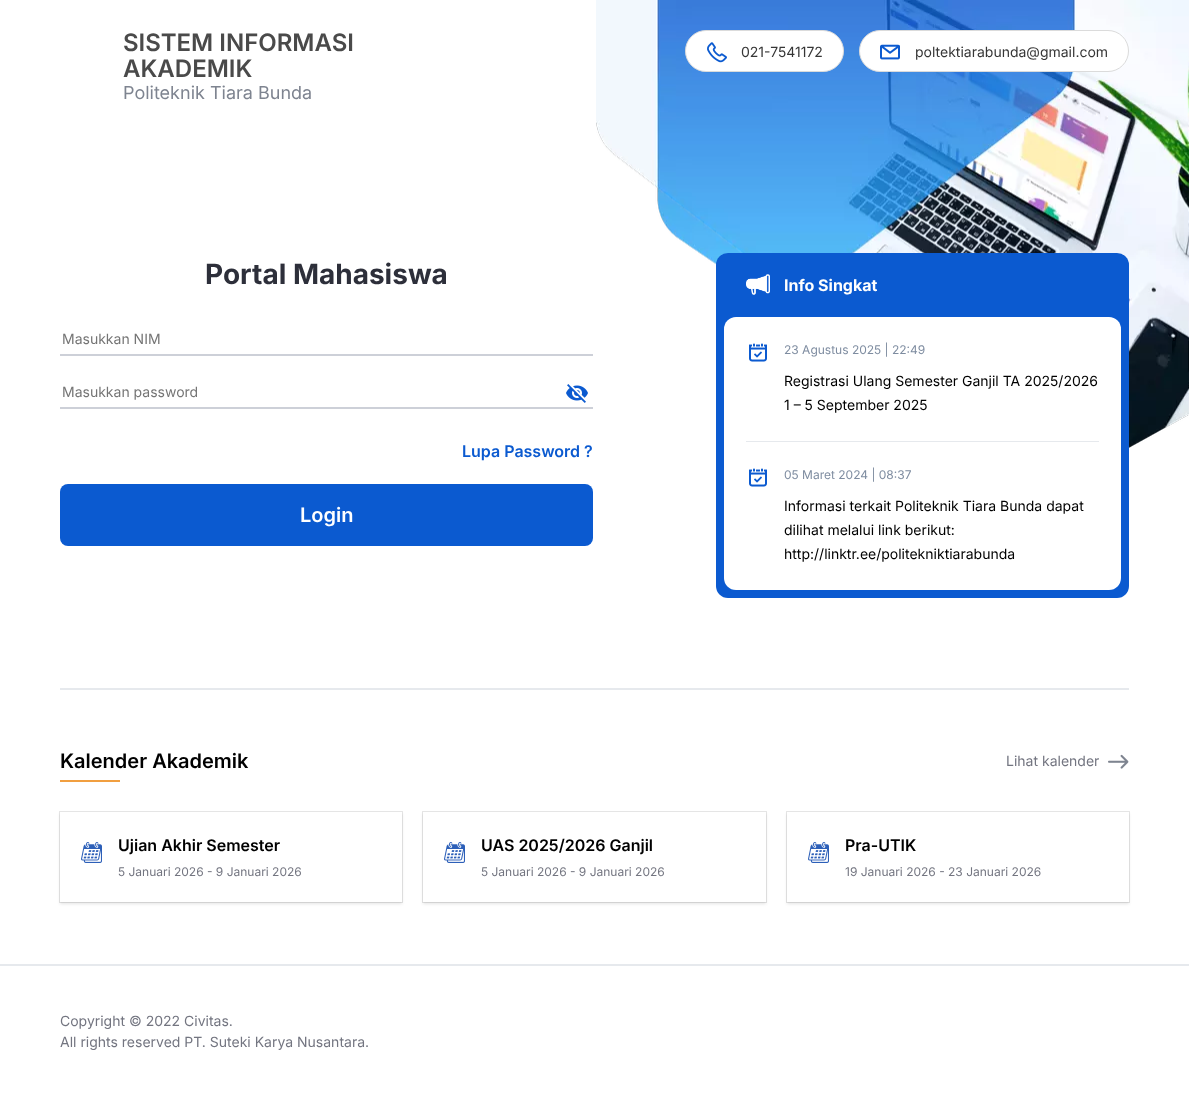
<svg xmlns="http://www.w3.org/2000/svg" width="1189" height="1102">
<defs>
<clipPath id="clip1"><path d="M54 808h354v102h-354zm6 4h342v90h-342z" clip-rule="evenodd"/></clipPath>
<clipPath id="clip2"><path d="M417 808h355v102h-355zm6 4h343v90h-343z" clip-rule="evenodd"/></clipPath>
<clipPath id="clip3"><path d="M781 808h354v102h-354zm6 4h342v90h-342z" clip-rule="evenodd"/></clipPath>
</defs>
<rect width="100%" height="100%" fill="#fff"/>
<image x="596" y="0" width="593" height="448" href="media/1.png"/>
<text x="123" y="51" style="font-family:Inter;font-size:24px;font-weight:600;fill:#4a4a4a">SISTEM INFORMASI</text>
<text x="123" y="77" style="font-family:Inter;font-size:24px;font-weight:600;fill:#4a4a4a">AKADEMIK</text>
<text x="123" y="99" style="font-family:Inter;font-size:18px;fill:#7e8490">Politeknik Tiara Bunda</text>
<rect x="685.5" y="30.5" width="158" height="41" rx="20.5" fill="#fff" stroke="#dbdbdb"/>
<image x="707" y="42" width="20" height="21" href="media/2.png"/>
<text x="741" y="57" style="font-family:Inter;font-size:14px;fill:#363636">021-7541172</text>
<rect x="859.5" y="30.5" width="269" height="41" rx="20.5" fill="#fff" stroke="#dbdbdb"/>
<image x="880" y="44" width="20" height="16" href="media/3.png"/>
<text x="915" y="57" style="font-family:Inter;font-size:14px;fill:#363636">poltektiarabunda@gmail.com</text>
<text x="205" y="284" style="font-family:Inter;font-size:28px;font-weight:bold;fill:#2d2f3a">Portal Mahasiswa</text>
<text x="62" y="344" style="font-family:Inter;font-size:14px;fill:#757575">Masukkan NIM</text>
<rect x="60" y="354" width="533" height="2" fill="#cdd0d8"/>
<image x="566" y="384" width="22" height="19" href="media/4.png"/>
<rect x="60" y="407" width="533" height="2" fill="#cdd0d8"/>
<text x="62" y="397" style="font-family:Inter;font-size:14px;fill:#757575">Masukkan password</text>
<text x="462" y="457" style="font-family:Inter;font-size:16px;font-weight:600;fill:#0b5ad0">Lupa Password ?</text>
<rect x="60" y="484" width="533" height="62" rx="8" fill="#0b5ad0"/>
<text x="300" y="522" style="font-family:Inter;font-size:20px;font-weight:600;fill:#fff">Login</text>
<rect x="716" y="253" width="413" height="345" rx="12" fill="#0b5ad0"/>
<image x="746" y="274" width="24" height="21" href="media/5.png"/>
<text x="784" y="291" style="font-family:Inter;font-size:16px;font-weight:bold;fill:#fff">Info Singkat</text>
<rect x="724" y="317" width="397" height="273" rx="12" fill="#fff"/>
<rect x="746" y="441" width="353" height="1" fill="#e6e9ed"/>
<image x="749" y="343" width="18" height="19" href="media/6.png"/>
<text x="784" y="354" style="font-family:Inter;font-size:12px;fill:#7e8ca0">23 Agustus 2025 | 22:49</text>
<text x="784" y="386" style="font-family:Inter;font-size:14px;fill:#000">Registrasi Ulang Semester Ganjil TA 2025/2026</text>
<text x="784" y="410" style="font-family:Inter;font-size:14px;fill:#000">1 – 5 September 2025</text>
<image x="749" y="468" width="18" height="19" href="media/6.png"/>
<text x="784" y="479" style="font-family:Inter;font-size:12px;fill:#7e8ca0">05 Maret 2024 | 08:37</text>
<text x="784" y="511" style="font-family:Inter;font-size:14px;fill:#000">Informasi terkait Politeknik Tiara Bunda dapat</text>
<text x="784" y="535" style="font-family:Inter;font-size:14px;fill:#000">dilihat melalui link berikut:</text>
<text x="784" y="559" style="font-family:Inter;font-size:14px;fill:#000">http://linktr.ee/politekniktiarabunda</text>
<rect x="60" y="688" width="1069" height="2" fill="#e6e9ed"/>
<text x="60" y="768" style="font-family:Inter;font-size:20px;font-weight:600;fill:#000">Kalender Akademik</text>
<rect x="60" y="780" width="60" height="2" fill="#f19f40"/>
<text x="1006" y="766" style="font-family:Inter;font-size:14px;fill:#737580">Lihat kalender</text>
<image x="1108" y="754" width="21" height="15" href="media/7.png"/>
<rect x="59.5" y="811.5" width="343" height="91" fill="none" stroke="#e6e6e6"/>
<g clip-path="url(#clip1)">
<rect x="60" y="814" width="342" height="90" fill="#0000001a" filter="blur(1.5px)"/>
</g>
<image x="81" y="842" width="21" height="21" href="media/8.png"/>
<text x="118" y="851" style="font-family:Inter;font-size:16px;font-weight:600;fill:#000">Ujian Akhir Semester</text>
<text x="118" y="876" style="font-family:Inter;font-size:12px;fill:#737580">5 Januari 2026 - 9 Januari 2026</text>
<rect x="422.5" y="811.5" width="344" height="91" fill="none" stroke="#e6e6e6"/>
<g clip-path="url(#clip2)">
<rect x="423" y="814" width="343" height="90" fill="#0000001a" filter="blur(1.5px)"/>
</g>
<image x="444" y="842" width="21" height="21" href="media/8.png"/>
<text x="481" y="851" style="font-family:Inter;font-size:16px;font-weight:600;fill:#000">UAS 2025/2026 Ganjil</text>
<text x="481" y="876" style="font-family:Inter;font-size:12px;fill:#737580">5 Januari 2026 - 9 Januari 2026</text>
<rect x="786.5" y="811.5" width="343" height="91" fill="none" stroke="#e6e6e6"/>
<g clip-path="url(#clip3)">
<rect x="787" y="814" width="342" height="90" fill="#0000001a" filter="blur(1.5px)"/>
</g>
<image x="808" y="842" width="21" height="21" href="media/8.png"/>
<text x="845" y="851" style="font-family:Inter;font-size:16px;font-weight:600;fill:#000">Pra-UTIK</text>
<text x="845" y="876" style="font-family:Inter;font-size:12px;fill:#737580">19 Januari 2026 - 23 Januari 2026</text>
<rect y="964" width="1189" height="2" fill="#e6e9ed"/>
<text x="60" y="1026" style="font-family:Inter;font-size:14px;fill:#737580">Copyright © 2022 Civitas.</text>
<text x="60" y="1047" style="font-family:Inter;font-size:14px;fill:#737580">All rights reserved PT. Suteki Karya Nusantara.</text>
</svg>
